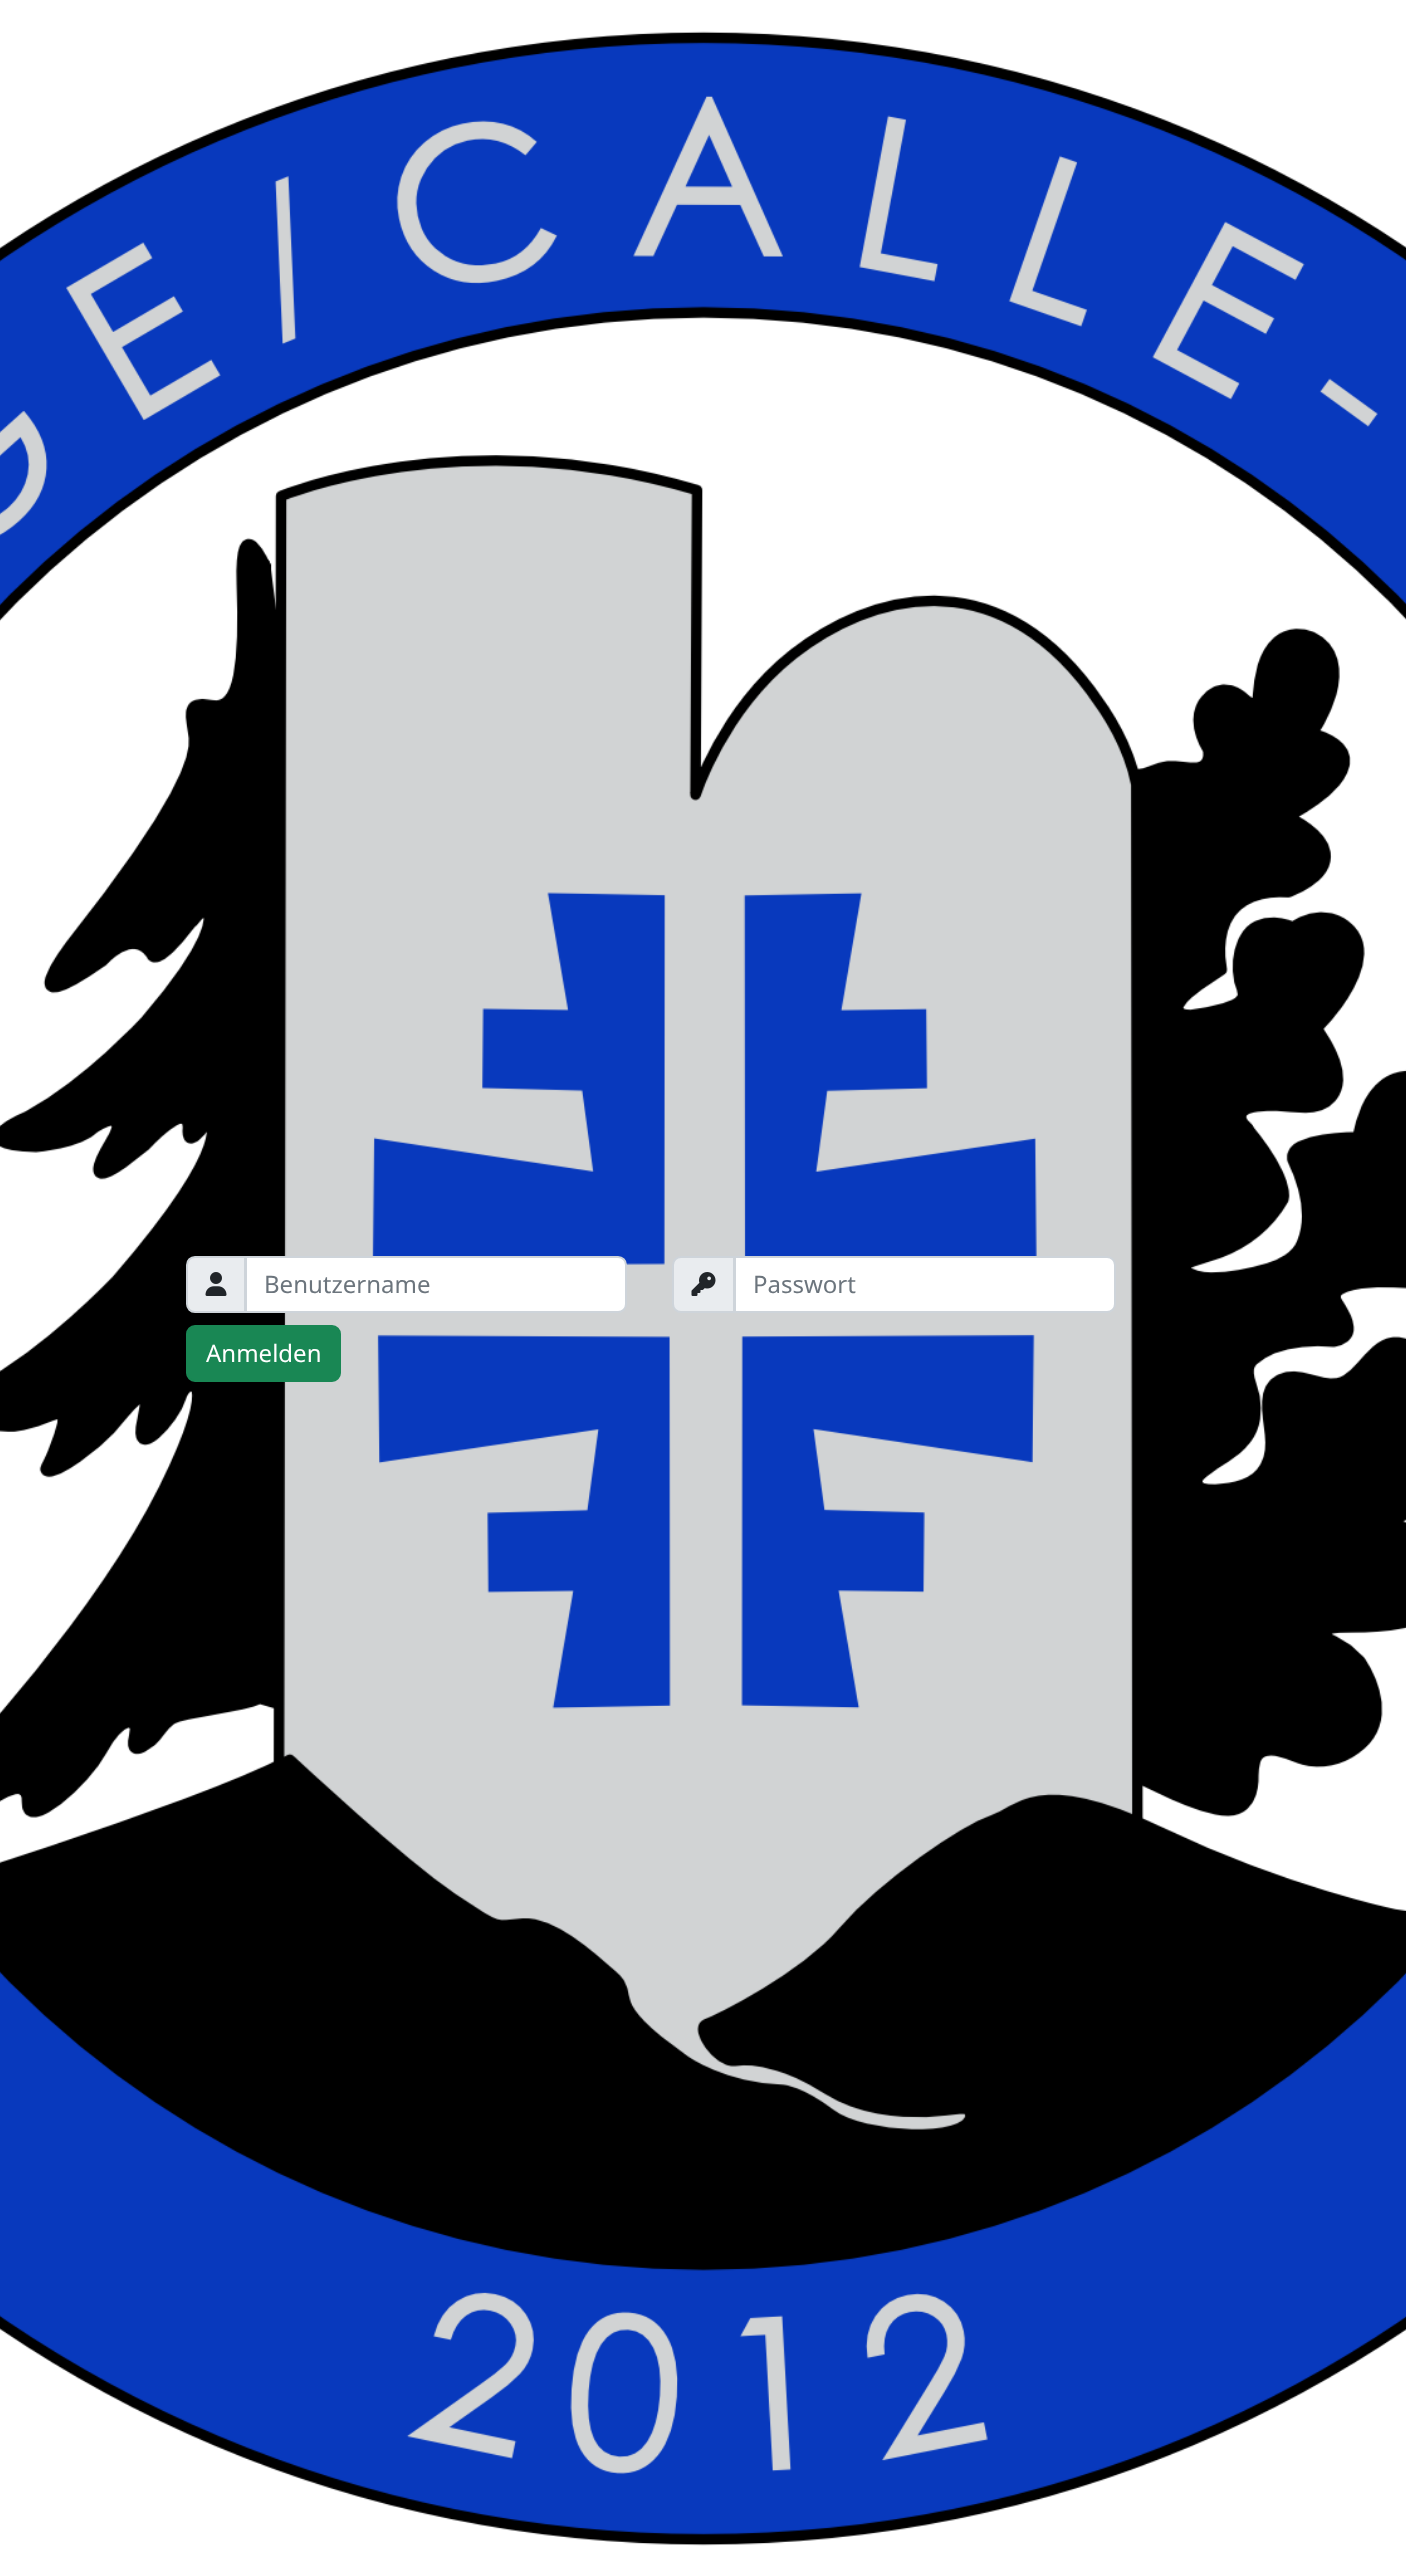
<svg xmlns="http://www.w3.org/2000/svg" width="1406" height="2576">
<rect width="100%" height="100%" fill="#fff"/>
<image x="0" y="31" width="1406" height="2515" href="media/1.png"/>
<path d="M195 1257h50v55h-50c-4.5 0-8-3.5-8-8v-39c0-4.5 3.5-8 8-8z" fill="#e9ecef" stroke="#ced4da" stroke-width="2"/>
<image x="205" y="1272" width="22" height="24" href="media/2.png"/>
<path d="M246 1257h372c4.5 0 8 3.5 8 8v39c0 4.5-3.5 8-8 8h-372z" fill="#fff" stroke="#ced4da" stroke-width="2"/>
<text x="264" y="1293" style="font-family:Noto Sans;font-size:24px;fill:#6c757d">Benutzername</text>
<path d="M681 1257h53v55h-53c-4.5 0-8-3.5-8-8v-39c0-4.5 3.5-8 8-8z" fill="#e9ecef" stroke="#ced4da" stroke-width="2"/>
<image x="691" y="1272" width="25" height="24" href="media/3.png"/>
<path d="M735 1257h372c4.5 0 8 3.5 8 8v39c0 4.5-3.5 8-8 8h-372z" fill="#fff" stroke="#ced4da" stroke-width="2"/>
<text x="753" y="1293" style="font-family:Noto Sans;font-size:24px;fill:#6c757d">Passwort</text>
<rect x="187" y="1326" width="153" height="55" rx="8" fill="#198754" stroke="#198754" stroke-width="2"/>
<text x="206" y="1362" style="font-family:Noto Sans;font-size:24px;fill:#fff">Anmelden</text>
</svg>
